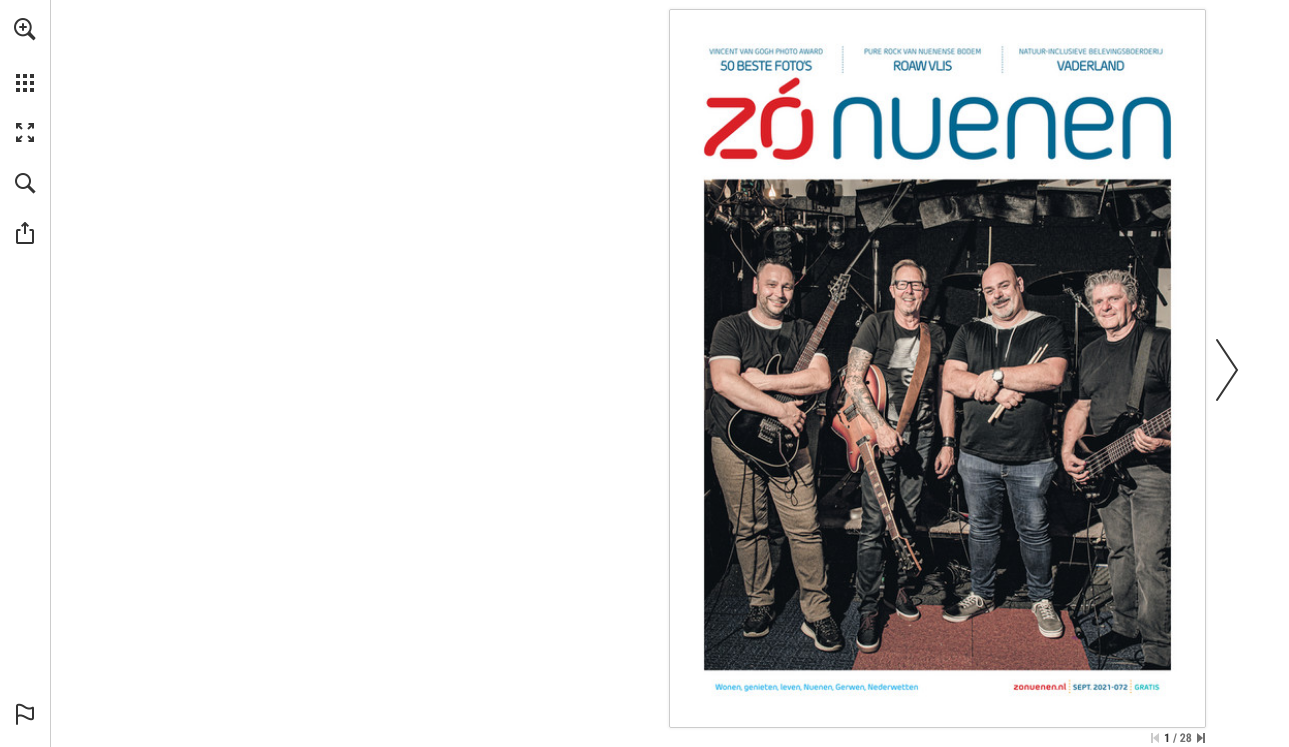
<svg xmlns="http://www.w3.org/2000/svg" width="1289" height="747">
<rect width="100%" height="100%" fill="#fff"/>
<rect x="1" width="50" height="747" fill="#00000033" filter="blur(0.5px)"/>
<rect width="50" height="747" fill="#fff"/>
<image x="14" y="18" width="22" height="23" href="media/1.png"/>
<image x="16" y="74" width="18" height="18" href="media/2.png"/>
<image x="16" y="123" width="18" height="19" href="media/3.png"/>
<image x="15" y="173" width="21" height="21" href="media/4.png"/>
<image x="16" y="222" width="18" height="22" href="media/5.png"/>
<image x="16" y="703" width="18" height="22" href="media/6.png"/>
<rect x="668" y="8" width="539" height="721" rx="3" fill="#1212120d" filter="blur(1px)"/>
<rect x="669.5" y="9.5" width="536" height="718" rx="1.5" fill="#fff" stroke="#ccc"/>
<image x="670" y="10" width="535" height="717" href="media/7.png"/>
<image x="1216" y="339" width="23" height="62" href="media/8.png"/>
<image x="1151" y="733" width="8" height="10" href="media/9.png"/>
<text x="1164" y="742" style="font-family:Roboto Condensed;font-size:12px;font-weight:bold;fill:#333">1</text>
<text x="1173" y="742" style="font-family:Roboto Condensed;font-size:12px;font-weight:bold;fill:#707070">/ 28</text>
<image x="1197" y="733" width="8" height="10" href="media/10.png"/>
</svg>
